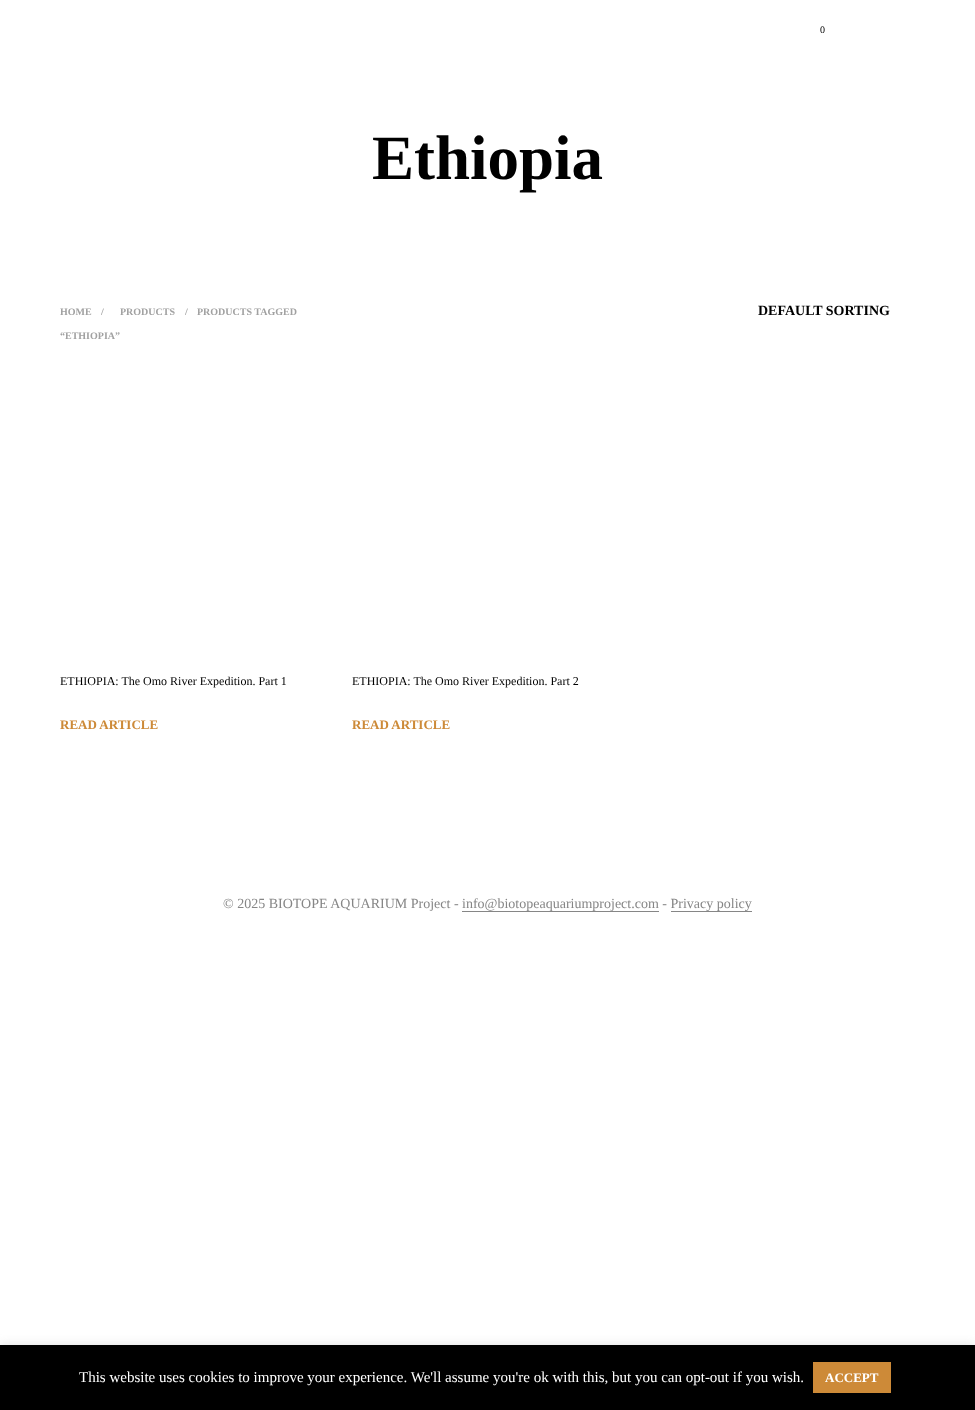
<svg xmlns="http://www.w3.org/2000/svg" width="975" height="1410">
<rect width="100%" height="100%" fill="#fff"/>
<text x="820" y="33" style="font-family:Liberation Serif;font-size:10px;fill:#000">0</text>
<text x="372" y="179" style="font-family:Liberation Serif;font-size:63px;font-weight:bold;fill:#000">Ethiopia</text>
<text x="60" y="315" style="font-family:Liberation Serif;font-size:10px;font-weight:bold;fill:#a1a1a1">HOME</text>
<text x="101" y="315" style="font-family:Liberation Serif;font-size:10px;font-weight:bold;fill:#a1a1a1">/</text>
<text x="120" y="315" style="font-family:Liberation Serif;font-size:10px;font-weight:bold;fill:#a1a1a1">PRODUCTS</text>
<text x="185" y="315" style="font-family:Liberation Serif;font-size:10px;font-weight:bold;fill:#a1a1a1">/</text>
<text x="197" y="315" style="font-family:Liberation Serif;font-size:10px;font-weight:bold;fill:#a1a1a1">PRODUCTS TAGGED</text>
<text x="60" y="339" style="font-family:Liberation Serif;font-size:10px;font-weight:bold;fill:#a1a1a1">“ETHIOPIA”</text>
<text x="758" y="315" style="font-family:Liberation Serif;font-size:14px;font-weight:bold;fill:#000">DEFAULT SORTING</text>
<text x="60" y="685" style="font-family:Liberation Serif;font-size:12px;fill:#000">ETHIOPIA: The Omo River Expedition. Part 1</text>
<text x="60" y="729" style="font-family:Liberation Serif;font-size:13px;font-weight:bold;fill:#cd8a38">READ ARTICLE</text>
<text x="352" y="685" style="font-family:Liberation Serif;font-size:12px;fill:#000">ETHIOPIA: The Omo River Expedition. Part 2</text>
<text x="352" y="729" style="font-family:Liberation Serif;font-size:13px;font-weight:bold;fill:#cd8a38">READ ARTICLE</text>
<text x="223" y="908" style="font-family:Liberation Serif;font-size:14px;fill:#868686">© 2025 BIOTOPE AQUARIUM Project - info@biotopeaquariumproject.com - Privacy policy</text>
<rect x="462" y="911" width="197" height="1" fill="#868686"/>
<rect x="671" y="911" width="81" height="1" fill="#868686"/>
<rect y="1344" width="975" height="65" fill="#acabab4d" filter="blur(5px)"/>
<rect y="1345" width="975" height="65" fill="#000"/>
<text x="79" y="1382" style="font-family:Liberation Serif;font-size:15px;fill:#fff">This website uses cookies to improve your experience. We'll assume you're ok with this, but you can opt-out if you wish.</text>
<rect x="813" y="1362" width="78" height="31" fill="#cd8a38"/>
<text x="825" y="1382" style="font-family:Liberation Serif;font-size:13px;font-weight:bold;fill:#fff">ACCEPT</text>
</svg>
